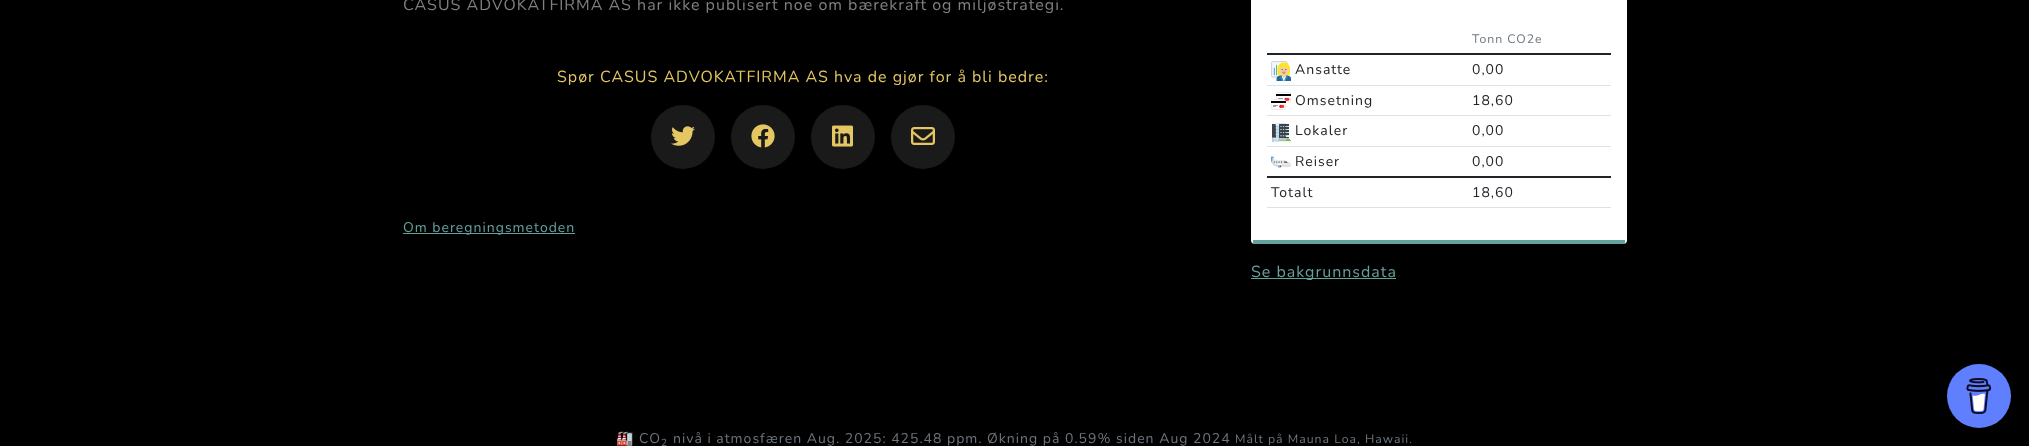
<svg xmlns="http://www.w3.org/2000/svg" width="2029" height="446">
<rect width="100%" height="100%" fill="#000"/>
<text x="403" y="10" style="font-family:Nunito;font-size:16px;letter-spacing:1px;fill:#808080">CASUS ADVOKATFIRMA AS har ikke publisert noe om bærekraft og miljøstrategi.</text>
<text x="557" y="82" style="font-family:Nunito;font-size:16px;letter-spacing:1px;fill:#e4c662">Spør CASUS ADVOKATFIRMA AS hva de gjør for å bli bedre:</text>
<circle cx="683" cy="137" r="32" fill="#1a1a1a"/>
<image x="671" y="126" width="24" height="20" href="media/1.png"/>
<circle cx="763" cy="137" r="32" fill="#1a1a1a"/>
<image x="751" y="124" width="24" height="24" href="media/2.png"/>
<circle cx="843" cy="137" r="32" fill="#1a1a1a"/>
<image x="832" y="125" width="21" height="22" href="media/3.png"/>
<circle cx="923" cy="137" r="32" fill="#1a1a1a"/>
<image x="911" y="127" width="24" height="18" href="media/4.png"/>
<rect x="403" y="233" width="172" height="1" fill="#64a19d"/>
<text x="403" y="232" style="font-family:Nunito;font-size:14px;letter-spacing:1px;fill:#64a19d">Om beregningsmetoden</text>
<rect x="1251" y="-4" width="376" height="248" rx="4" fill="#fff"/>
<rect x="1253" y="240" width="372" height="4" fill="#64a19d"/>
<text x="1472" y="43" style="font-family:Nunito;font-size:12.25px;letter-spacing:1px;fill:#6c757d">Tonn CO2e</text>
<rect x="1267" y="53" width="344" height="2" fill="#212529"/>
<image x="1271" y="61" width="20" height="20" href="media/5.png"/>
<text x="1295" y="74" style="font-family:Nunito;font-size:14px;letter-spacing:1px;fill:#212529">Ansatte</text>
<rect x="1267" y="85" width="344" height="1" fill="#dee2e6"/>
<text x="1472" y="74" style="font-family:Nunito;font-size:14px;letter-spacing:1px;fill:#212529">0,00</text>
<image x="1271" y="92" width="20" height="18" href="media/6.png"/>
<text x="1295" y="105" style="font-family:Nunito;font-size:14px;letter-spacing:1px;fill:#212529">Omsetning</text>
<rect x="1267" y="115" width="344" height="1" fill="#dee2e6"/>
<text x="1472" y="105" style="font-family:Nunito;font-size:14px;letter-spacing:1px;fill:#212529">18,60</text>
<image x="1271" y="123" width="20" height="19" href="media/7.png"/>
<text x="1295" y="135" style="font-family:Nunito;font-size:14px;letter-spacing:1px;fill:#212529">Lokaler</text>
<rect x="1267" y="146" width="344" height="1" fill="#dee2e6"/>
<text x="1472" y="135" style="font-family:Nunito;font-size:14px;letter-spacing:1px;fill:#212529">0,00</text>
<image x="1271" y="156" width="20" height="12" href="media/8.png"/>
<text x="1295" y="166" style="font-family:Nunito;font-size:14px;letter-spacing:1px;fill:#212529">Reiser</text>
<text x="1472" y="166" style="font-family:Nunito;font-size:14px;letter-spacing:1px;fill:#212529">0,00</text>
<rect x="1267" y="176" width="344" height="2" fill="#212529"/>
<text x="1271" y="197" style="font-family:Nunito;font-size:14px;letter-spacing:1px;fill:#212529">Totalt</text>
<rect x="1267" y="207" width="344" height="1" fill="#dee2e6"/>
<text x="1472" y="197" style="font-family:Nunito;font-size:14px;letter-spacing:1px;fill:#212529">18,60</text>
<rect x="1251" y="278" width="145" height="1" fill="#64a19d"/>
<text x="1251" y="277" style="font-family:Nunito;font-size:16px;letter-spacing:1px;fill:#64a19d">Se bakgrunnsdata</text>
<circle cx="1979" cy="396" r="32" fill="#5f7fff"/>
<image x="1966" y="378" width="26" height="36" href="media/9.png"/>
<text x="616" y="443" style="font-family:Noto Color Emoji;font-size:14px;letter-spacing:1px;fill:#6c757d">🏭</text>
<text x="639" y="443" style="font-family:Nunito;font-size:14px;letter-spacing:1px;fill:#6c757d">CO</text>
<text x="661" y="446" style="font-family:Nunito;font-size:10px;letter-spacing:1px;fill:#6c757d">2</text>
<text x="673" y="443" style="font-family:Nunito;font-size:14px;letter-spacing:1px;fill:#6c757d">nivå i atmosfæren Aug. 2025: 425.48 ppm. Økning på 0.59% siden Aug 2024</text>
<text x="1235" y="443" style="font-family:Nunito;font-size:12.25px;letter-spacing:1px;fill:#6c757d">Målt på Mauna Loa, Hawaii.</text>
</svg>
